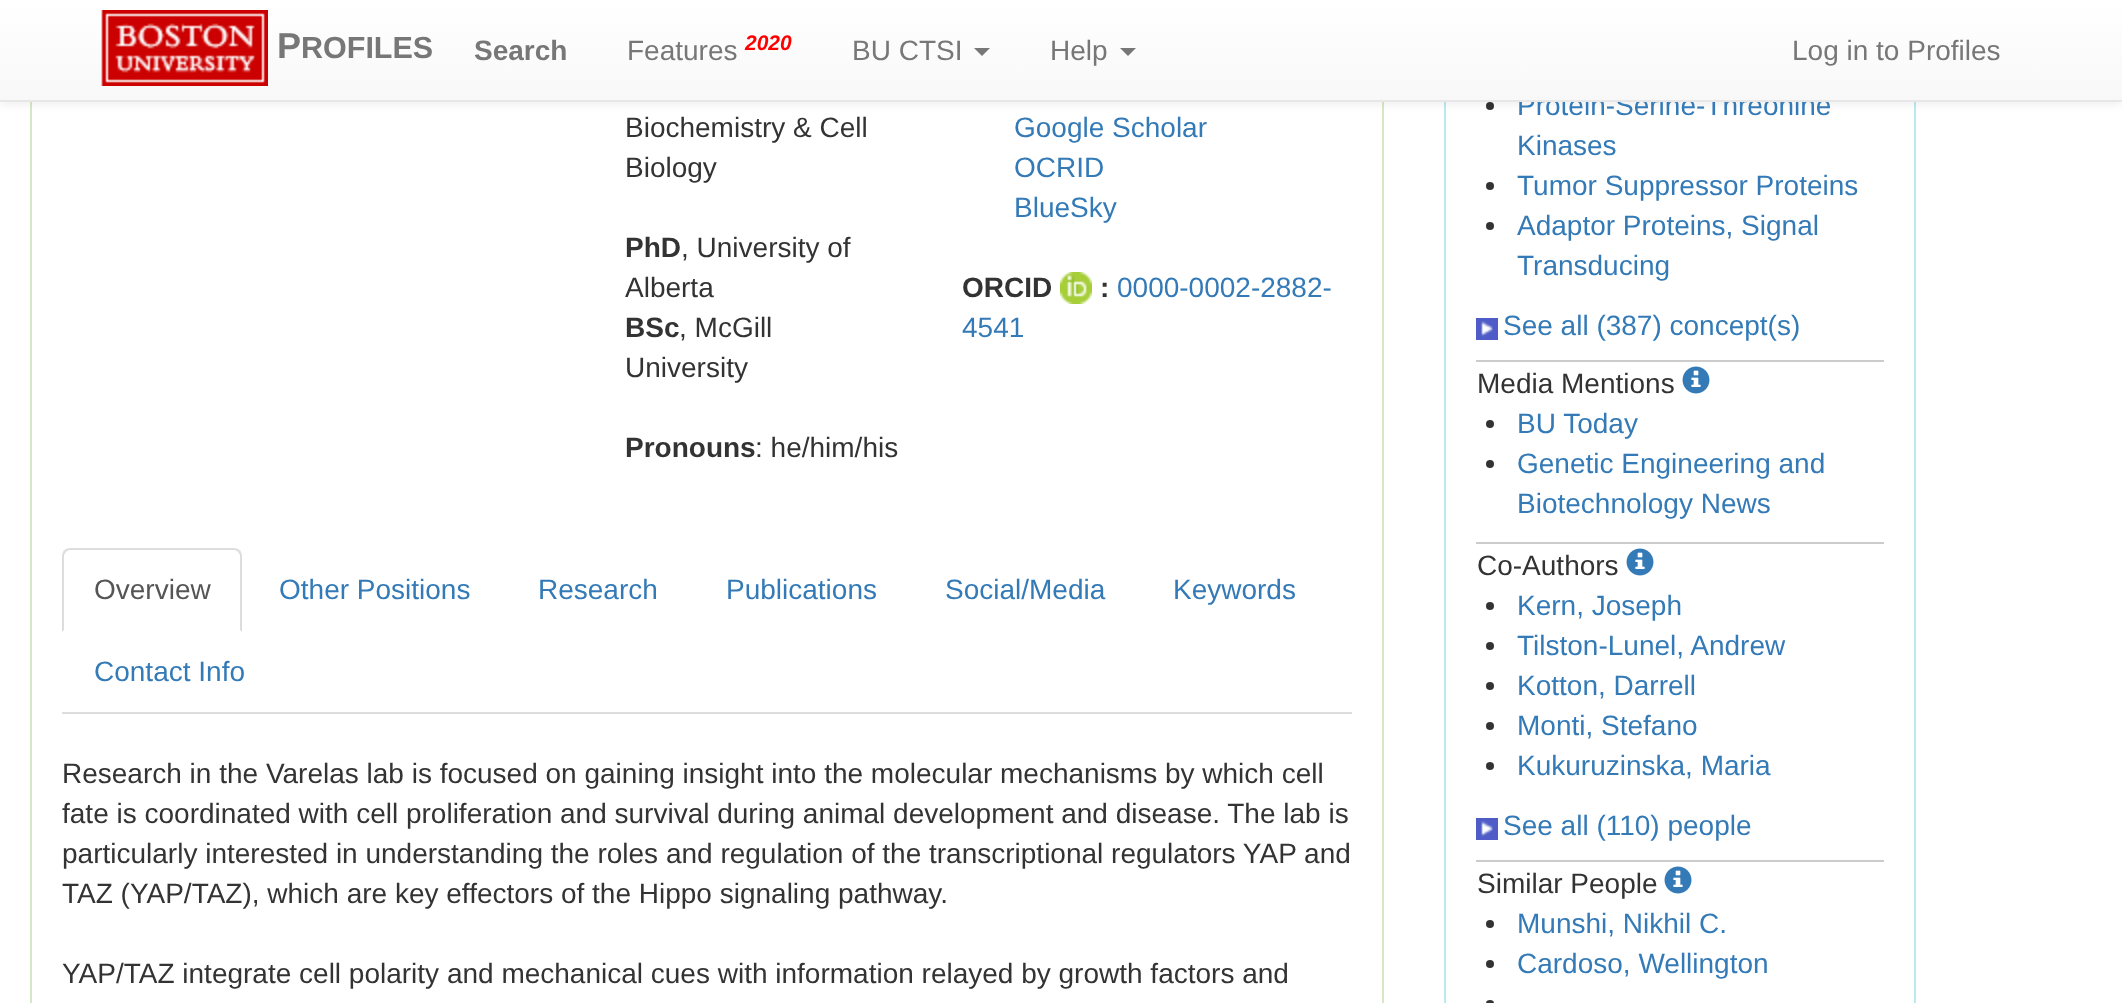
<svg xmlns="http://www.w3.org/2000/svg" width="2122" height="1003">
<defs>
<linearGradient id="g1" gradientUnits="userSpaceOnUse" x1="1061" y1="0" x2="1061" y2="100"><stop offset="0" stop-color="#fff"/><stop offset="1" stop-color="#f8f8f8"/></linearGradient>
</defs>
<rect width="100%" height="100%" fill="#fff"/>
<rect x="31" y="-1" width="1352" height="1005" fill="none" stroke="#d6e9c6" stroke-width="2"/>
<rect x="1445" y="-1" width="470" height="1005" fill="none" stroke="#bce8f1" stroke-width="2"/>
<circle cx="1490" cy="106" r="4" fill="#333"/>
<rect y="2" width="2122" height="102" fill="#00000012" filter="blur(5px)"/>
<text x="1517" y="115" style="font-family:Liberation Sans;font-size:28px;fill:#337ab7">Protein-Serine-Threonine</text>
<rect width="2122" height="100" fill="url(#g1)"/>
<rect y="100" width="2122" height="2" fill="#e7e7e7"/>
<image x="101" y="10" width="167" height="76" href="media/1.png"/>
<text x="277" y="58" style="font-family:Liberation Sans;font-size:36px;font-weight:bold;fill:#777">P</text>
<text x="301" y="58" style="font-family:Liberation Sans;font-size:30.5px;font-weight:bold;fill:#777">ROFILES</text>
<text x="474" y="60" style="font-family:Liberation Sans;font-size:28px;font-weight:bold;fill:#777">Search</text>
<text x="627" y="60" style="font-family:Liberation Sans;font-size:28px;fill:#777">Features</text>
<text x="745" y="50" style="font-family:Liberation Sans;font-size:21px;font-weight:bold;font-style:italic;fill:#f00">2020</text>
<text x="852" y="60" style="font-family:Liberation Sans;font-size:28px;fill:#777">BU CTSI</text>
<path d="M974 48h16l-8 8z" fill="#777"/>
<text x="1050" y="60" style="font-family:Liberation Sans;font-size:28px;fill:#777">Help</text>
<path d="M1120 48h16l-8 8z" fill="#777"/>
<text x="1792" y="60" style="font-family:Liberation Sans;font-size:28px;fill:#777">Log in to Profiles</text>
<text x="625" y="137" style="font-family:Liberation Sans;font-size:28px;fill:#333">Biochemistry &amp; Cell</text>
<text x="625" y="177" style="font-family:Liberation Sans;font-size:28px;fill:#333">Biology</text>
<text x="625" y="257" style="font-family:Liberation Sans;font-size:28px;font-weight:bold;fill:#333">PhD</text>
<text x="681" y="257" style="font-family:Liberation Sans;font-size:28px;fill:#333">, University of</text>
<text x="625" y="297" style="font-family:Liberation Sans;font-size:28px;fill:#333">Alberta</text>
<text x="625" y="337" style="font-family:Liberation Sans;font-size:28px;font-weight:bold;fill:#333">BSc</text>
<text x="679" y="337" style="font-family:Liberation Sans;font-size:28px;fill:#333">, McGill</text>
<text x="625" y="377" style="font-family:Liberation Sans;font-size:28px;fill:#333">University</text>
<text x="625" y="457" style="font-family:Liberation Sans;font-size:28px;font-weight:bold;fill:#333">Pronouns</text>
<text x="755" y="457" style="font-family:Liberation Sans;font-size:28px;fill:#333">: he/him/his</text>
<text x="1014" y="137" style="font-family:Liberation Sans;font-size:28px;fill:#337ab7">Google Scholar</text>
<text x="1014" y="177" style="font-family:Liberation Sans;font-size:28px;fill:#337ab7">OCRID</text>
<text x="1014" y="217" style="font-family:Liberation Sans;font-size:28px;fill:#337ab7">BlueSky</text>
<text x="962" y="297" style="font-family:Liberation Sans;font-size:28px;font-weight:bold;fill:#333">ORCID</text>
<image x="1060" y="272" width="32" height="32" href="media/2.png"/>
<text x="1100" y="297" style="font-family:Liberation Sans;font-size:28px;font-weight:bold;fill:#333">:</text>
<text x="1117" y="297" style="font-family:Liberation Sans;font-size:28px;fill:#337ab7">0000-0002-2882-</text>
<text x="962" y="337" style="font-family:Liberation Sans;font-size:28px;fill:#337ab7">4541</text>
<rect x="62" y="712" width="1290" height="2" fill="#ddd"/>
<path d="M70 548c-2 0-4 1-6 2l2 2c1-1 2-2 4-2h164c2 0 3 1 4 2l2-2c-2-1-4-2-6-2z" fill="#ddd"/>
<path d="M242 632v-76c0-2-1-4-2-6l-2 2l2 3v75z" fill="#ddd"/>
<path d="M62 632l2-2v-75l2-3l-2-2c-1 2-2 4-2 6z" fill="#ddd"/>
<text x="94" y="599" style="font-family:Liberation Sans;font-size:28px;fill:#555">Overview</text>
<text x="279" y="599" style="font-family:Liberation Sans;font-size:28px;fill:#337ab7">Other Positions</text>
<text x="538" y="599" style="font-family:Liberation Sans;font-size:28px;fill:#337ab7">Research</text>
<text x="726" y="599" style="font-family:Liberation Sans;font-size:28px;fill:#337ab7">Publications</text>
<text x="945" y="599" style="font-family:Liberation Sans;font-size:28px;fill:#337ab7">Social/Media</text>
<text x="1173" y="599" style="font-family:Liberation Sans;font-size:28px;fill:#337ab7">Keywords</text>
<text x="94" y="681" style="font-family:Liberation Sans;font-size:28px;fill:#337ab7">Contact Info</text>
<text x="62" y="783" style="font-family:Liberation Sans;font-size:28px;fill:#333">Research in the Varelas lab is focused on gaining insight into the molecular mechanisms by which cell</text>
<text x="62" y="823" style="font-family:Liberation Sans;font-size:28px;fill:#333">fate is coordinated with cell proliferation and survival during animal development and disease. The lab is</text>
<text x="62" y="863" style="font-family:Liberation Sans;font-size:28px;fill:#333">particularly interested in understanding the roles and regulation of the transcriptional regulators YAP and</text>
<text x="62" y="903" style="font-family:Liberation Sans;font-size:28px;fill:#333">TAZ (YAP/TAZ), which are key effectors of the Hippo signaling pathway.</text>
<text x="62" y="983" style="font-family:Liberation Sans;font-size:28px;fill:#333">YAP/TAZ integrate cell polarity and mechanical cues with information relayed by growth factors and</text>
<text x="1517" y="155" style="font-family:Liberation Sans;font-size:28px;fill:#337ab7">Kinases</text>
<circle cx="1490" cy="186" r="4" fill="#333"/>
<text x="1517" y="195" style="font-family:Liberation Sans;font-size:28px;fill:#337ab7">Tumor Suppressor Proteins</text>
<circle cx="1490" cy="226" r="4" fill="#333"/>
<text x="1517" y="235" style="font-family:Liberation Sans;font-size:28px;fill:#337ab7">Adaptor Proteins, Signal</text>
<text x="1517" y="275" style="font-family:Liberation Sans;font-size:28px;fill:#337ab7">Transducing</text>
<image x="1476" y="318" width="22" height="22" href="media/3.png"/>
<text x="1503" y="335" style="font-family:Liberation Sans;font-size:28px;fill:#337ab7">See all (387) concept(s)</text>
<rect x="1476" y="360" width="408" height="2" fill="#ccc"/>
<text x="1477" y="393" style="font-family:Liberation Sans;font-size:28px;fill:#333">Media Mentions</text>
<image x="1682" y="366" width="28" height="28" href="media/4.png"/>
<circle cx="1490" cy="424" r="4" fill="#333"/>
<text x="1517" y="433" style="font-family:Liberation Sans;font-size:28px;fill:#337ab7">BU Today</text>
<circle cx="1490" cy="464" r="4" fill="#333"/>
<text x="1517" y="473" style="font-family:Liberation Sans;font-size:28px;fill:#337ab7">Genetic Engineering and</text>
<text x="1517" y="513" style="font-family:Liberation Sans;font-size:28px;fill:#337ab7">Biotechnology News</text>
<rect x="1476" y="542" width="408" height="2" fill="#ccc"/>
<text x="1477" y="575" style="font-family:Liberation Sans;font-size:28px;fill:#333">Co-Authors</text>
<image x="1626" y="548" width="28" height="28" href="media/4.png"/>
<circle cx="1490" cy="606" r="4" fill="#333"/>
<text x="1517" y="615" style="font-family:Liberation Sans;font-size:28px;fill:#337ab7">Kern, Joseph</text>
<circle cx="1490" cy="646" r="4" fill="#333"/>
<text x="1517" y="655" style="font-family:Liberation Sans;font-size:28px;fill:#337ab7">Tilston-Lunel, Andrew</text>
<circle cx="1490" cy="686" r="4" fill="#333"/>
<text x="1517" y="695" style="font-family:Liberation Sans;font-size:28px;fill:#337ab7">Kotton, Darrell</text>
<circle cx="1490" cy="726" r="4" fill="#333"/>
<text x="1517" y="735" style="font-family:Liberation Sans;font-size:28px;fill:#337ab7">Monti, Stefano</text>
<circle cx="1490" cy="766" r="4" fill="#333"/>
<text x="1517" y="775" style="font-family:Liberation Sans;font-size:28px;fill:#337ab7">Kukuruzinska, Maria</text>
<image x="1476" y="818" width="22" height="22" href="media/3.png"/>
<text x="1503" y="835" style="font-family:Liberation Sans;font-size:28px;fill:#337ab7">See all (110) people</text>
<rect x="1476" y="860" width="408" height="2" fill="#ccc"/>
<text x="1477" y="893" style="font-family:Liberation Sans;font-size:28px;fill:#333">Similar People</text>
<image x="1664" y="866" width="28" height="28" href="media/4.png"/>
<circle cx="1490" cy="924" r="4" fill="#333"/>
<text x="1517" y="933" style="font-family:Liberation Sans;font-size:28px;fill:#337ab7">Munshi, Nikhil C.</text>
<circle cx="1490" cy="964" r="4" fill="#333"/>
<text x="1517" y="973" style="font-family:Liberation Sans;font-size:28px;fill:#337ab7">Cardoso, Wellington</text>
<rect x="1486" y="1000" width="8" height="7" rx="4" fill="#333"/>
</svg>
